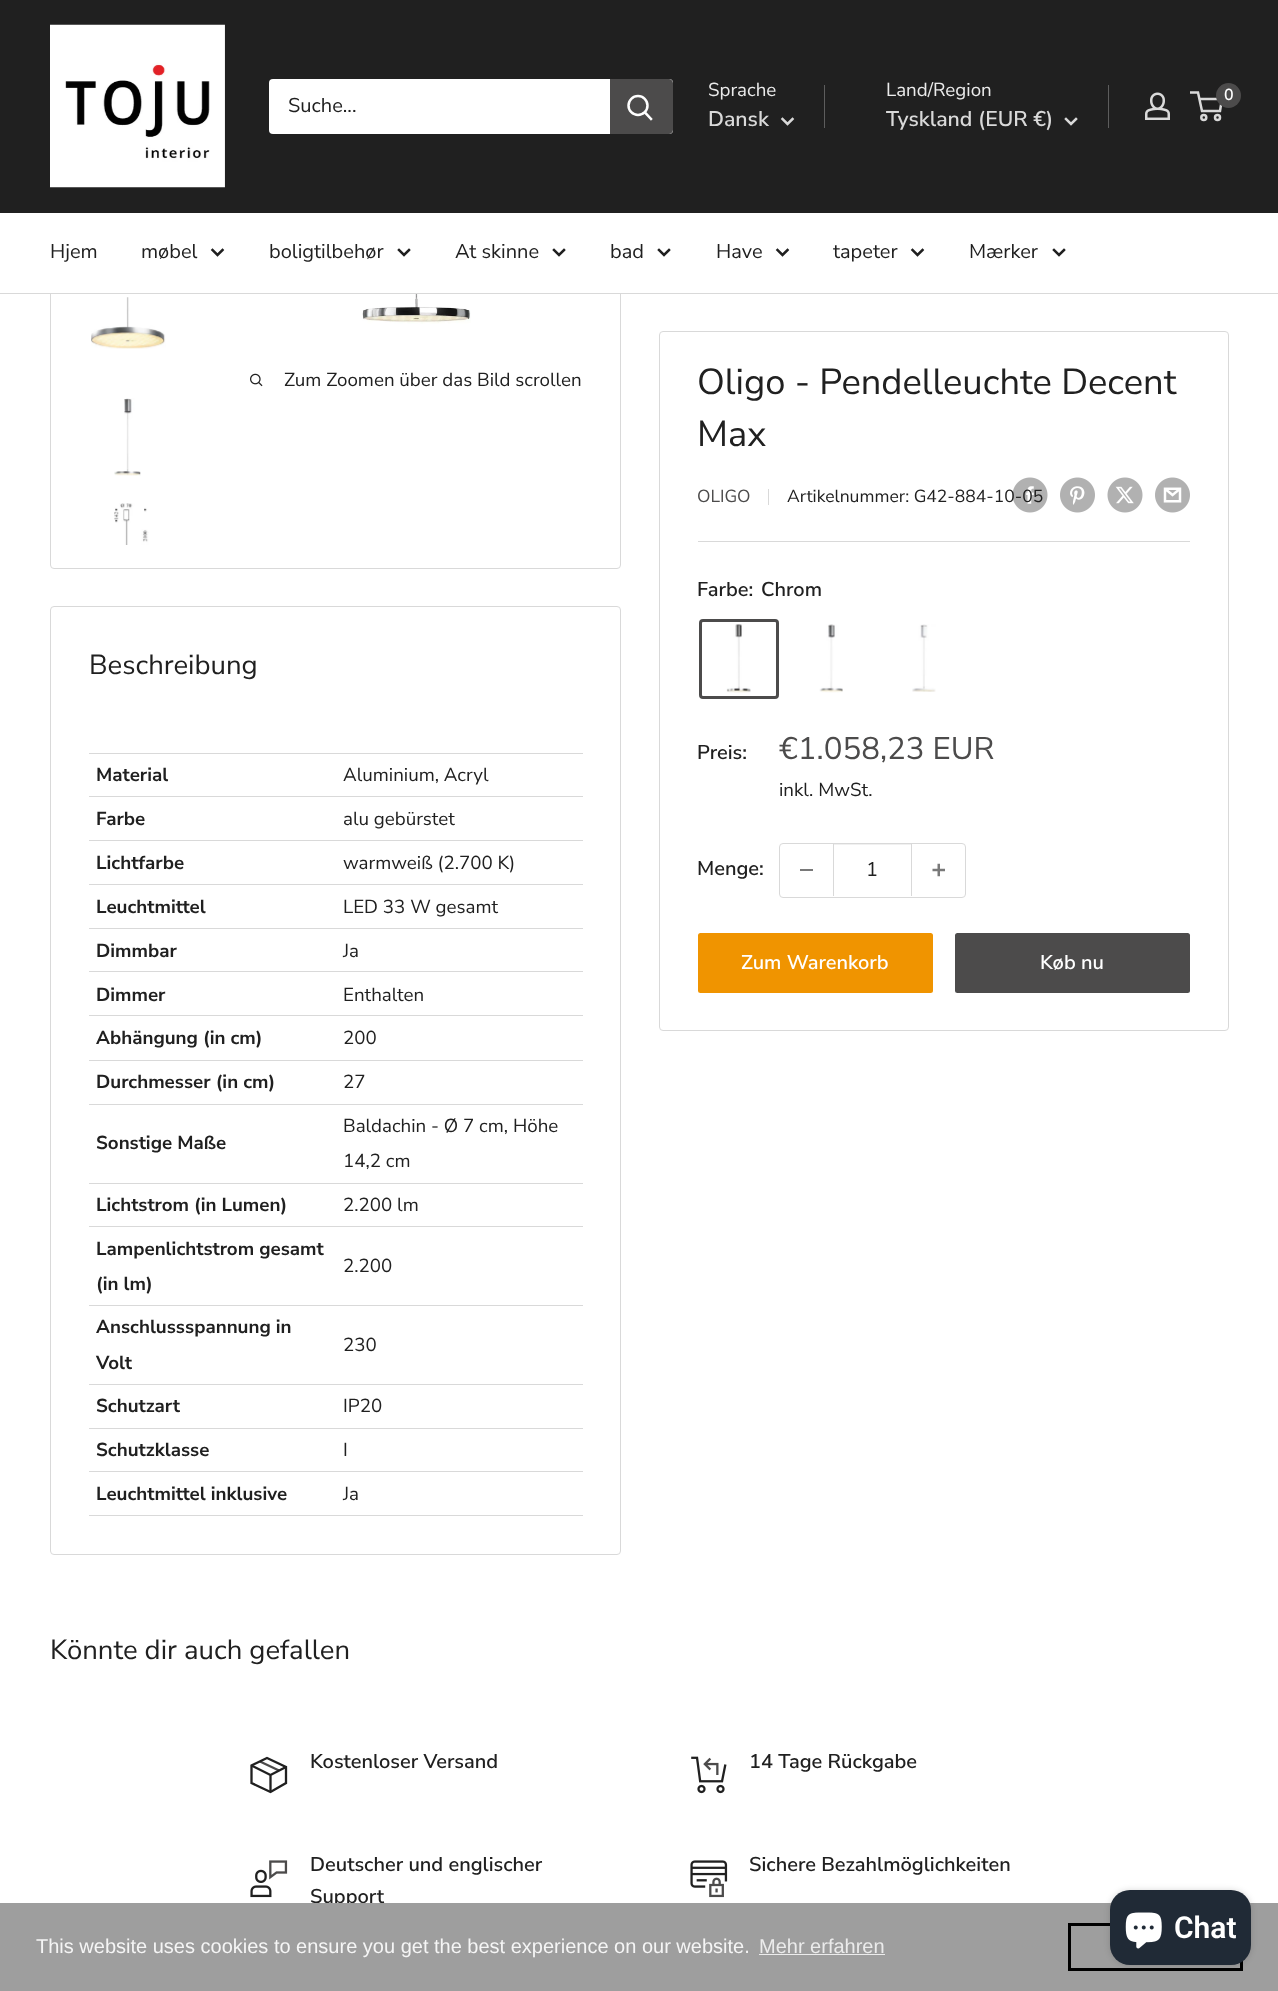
<svg xmlns="http://www.w3.org/2000/svg" width="1278" height="1991">
<rect width="100%" height="100%" fill="#fff"/>
<rect x="50.5" y="-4.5" width="570" height="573" rx="3.5" fill="none" stroke="#d9d9d9"/>
<rect width="1278" height="213" fill="#202020"/>
<image x="50" y="24" width="175" height="164" href="media/1.png"/>
<rect x="269" y="79" width="404" height="55" rx="4" fill="#fff"/>
<text x="288" y="112" style="font-family:Nunito Sans;font-size:20px;fill:#202020">Suche...</text>
<path d="M610 79h59c2 0 4 2 4 4v47c0 2-2 4-4 4h-59z" fill="#4c4b4b"/>
<path d="M651 119l-6-6.5" fill="none" stroke="#fff" stroke-width="2.5" stroke-linecap="square"/>
<circle cx="638" cy="105.5" r="9.5" fill="none" stroke="#fff" stroke-width="2.5"/>
<text x="708" y="96" style="font-family:Nunito Sans;font-size:18.75px;fill:#ebebeb">Sprache</text>
<text x="708" y="126" style="font-family:Nunito Sans;font-size:21.25px;font-weight:600;fill:#d9d9d9">Dansk</text>
<path d="M792.5 119l-5 5l-5-5" fill="none" stroke="#d9d9d9" stroke-width="2.5" stroke-linecap="square"/>
<rect x="824" y="85" width="1" height="43" fill="#5d5d5d"/>
<text x="886" y="96" style="font-family:Nunito Sans;font-size:18.75px;fill:#ebebeb">Land/Region</text>
<text x="886" y="126" style="font-family:Nunito Sans;font-size:21.25px;font-weight:600;fill:#d9d9d9">Tyskland (EUR €)</text>
<path d="M1076 119l-5 5l-5-5" fill="none" stroke="#d9d9d9" stroke-width="2.5" stroke-linecap="square"/>
<rect x="1108" y="85" width="1" height="43" fill="#5d5d5d"/>
<image x="1145" y="92" width="25" height="28" href="media/2.png"/>
<circle cx="1203.8" cy="117.5" r="2.5" fill="none" stroke="#d9d9d9" stroke-width="2.5"/>
<circle cx="1217.5" cy="117.5" r="2.5" fill="none" stroke="#d9d9d9" stroke-width="2.5"/>
<path d="M1199 99h23l-2 12h-18l-4-18.5h-8" fill="none" stroke="#d9d9d9" stroke-width="2.5"/>
<circle cx="1228.5" cy="95.5" r="12.5" fill="#4c4b4b"/>
<text x="1224" y="100" style="font-family:Nunito Sans;font-size:16px;font-weight:600;fill:#fff">0</text>
<rect x="50" y="213" width="571" height="80" fill="#fff"/>
<rect y="293" width="1278" height="1" fill="#d9d9d9"/>
<text x="50" y="258" style="font-family:Nunito Sans;font-size:20px;fill:#202020">Hjem</text>
<text x="141" y="258" style="font-family:Nunito Sans;font-size:20px;fill:#202020">møbel</text>
<path d="M222.5 250l-5 5l-5-5" fill="none" stroke="#202020" stroke-width="2.5" stroke-linecap="square"/>
<text x="269" y="258" style="font-family:Nunito Sans;font-size:20px;fill:#202020">boligtilbehør</text>
<path d="M409 250l-5 5l-5-5" fill="none" stroke="#202020" stroke-width="2.5" stroke-linecap="square"/>
<text x="455" y="258" style="font-family:Nunito Sans;font-size:20px;fill:#202020">At skinne</text>
<path d="M564 250l-5 5l-5-5" fill="none" stroke="#202020" stroke-width="2.5" stroke-linecap="square"/>
<text x="610" y="258" style="font-family:Nunito Sans;font-size:20px;fill:#202020">bad</text>
<path d="M669 250l-5 5l-5-5" fill="none" stroke="#202020" stroke-width="2.5" stroke-linecap="square"/>
<text x="716" y="258" style="font-family:Nunito Sans;font-size:20px;fill:#202020">Have</text>
<path d="M787.5 250l-5 5l-5-5" fill="none" stroke="#202020" stroke-width="2.5" stroke-linecap="square"/>
<text x="833" y="258" style="font-family:Nunito Sans;font-size:20px;fill:#202020">tapeter</text>
<path d="M922.5 250l-5 5l-5-5" fill="none" stroke="#202020" stroke-width="2.5" stroke-linecap="square"/>
<text x="969" y="258" style="font-family:Nunito Sans;font-size:20px;fill:#202020">Mærker</text>
<path d="M1064 250l-5 5l-5-5" fill="none" stroke="#202020" stroke-width="2.5" stroke-linecap="square"/>
<image x="91" y="297" width="75" height="52" href="media/3.png"/>
<image x="114" y="398" width="27" height="78" href="media/4.png"/>
<image x="114" y="503" width="35" height="42" href="media/5.png"/>
<image x="362" y="294" width="109" height="30" href="media/6.png"/>
<image x="250" y="373" width="13" height="14" href="media/7.png"/>
<text x="284" y="386" style="font-family:Nunito Sans;font-size:18.75px;fill:#202020">Zum Zoomen über das Bild scrollen</text>
<rect x="659.5" y="331.5" width="569" height="699" rx="3.5" fill="none" stroke="#d9d9d9"/>
<text x="697" y="394" style="font-family:Nunito Sans;font-size:36.25px;fill:#202020">Oligo - Pendelleuchte Decent</text>
<text x="697" y="446" style="font-family:Nunito Sans;font-size:36.25px;fill:#202020">Max</text>
<text x="697" y="502" style="font-family:Nunito Sans;font-size:17.5px;fill:#4c4b4b">OLIGO</text>
<rect x="768" y="489" width="1" height="16" fill="#d9d9d9"/>
<text x="787" y="502" style="font-family:Nunito Sans;font-size:17.5px;fill:#202020">Artikelnummer: G42-884-10-05</text>
<image x="1012" y="477" width="36" height="36" href="media/8.png"/>
<image x="1060" y="477" width="35" height="36" href="media/9.png"/>
<image x="1107" y="477" width="36" height="36" href="media/10.png"/>
<image x="1155" y="477" width="35" height="36" href="media/11.png"/>
<rect x="698" y="541" width="492" height="1" fill="#d9d9d9"/>
<text x="697" y="596" style="font-family:Nunito Sans;font-size:20px;font-weight:600;fill:#202020">Farbe:</text>
<text x="761" y="596" style="font-family:Nunito Sans;font-size:20px;font-weight:600;fill:#202020">Chrom</text>
<rect x="700.5" y="620.5" width="77" height="77" rx="2.5" fill="none" stroke="#4c4b4b" stroke-width="3"/>
<image x="726" y="624" width="25" height="69" href="media/12.png"/>
<image x="819" y="624" width="24" height="69" href="media/13.png"/>
<image x="912" y="624" width="24" height="68" href="media/14.png"/>
<text x="697" y="759" style="font-family:Nunito Sans;font-size:20px;font-weight:600;fill:#202020">Preis:</text>
<text x="779" y="759" style="font-family:Nunito Sans;font-size:31.25px;fill:#4c4b4b">€1.058,23 EUR</text>
<text x="779" y="796" style="font-family:Nunito Sans;font-size:18.75px;fill:#202020">inkl. MwSt.</text>
<text x="697" y="875" style="font-family:Nunito Sans;font-size:20px;font-weight:600;fill:#202020">Menge:</text>
<rect x="779.5" y="843.5" width="186" height="54" rx="3.5" fill="none" stroke="#d9d9d9"/>
<rect x="800" y="869" width="13" height="2" fill="#797979"/>
<rect x="834" y="844" width="77" height="1" fill="#f0f0f0"/>
<rect x="911" y="844" width="1" height="52" fill="#d9d9d9"/>
<rect x="833" y="844" width="1" height="52" fill="#d9d9d9"/>
<text x="866" y="876" style="font-family:Nunito Sans;font-size:20px;fill:#202020">1</text>
<image x="932" y="863" width="13" height="14" href="media/15.png"/>
<rect x="698" y="933" width="235" height="60" rx="2.5" fill="#f09400"/>
<text x="741" y="969" style="font-family:Nunito Sans;font-size:20px;font-weight:600;fill:#fff">Zum Warenkorb</text>
<rect x="955" y="933" width="235" height="60" rx="2.5" fill="#4c4b4b"/>
<text x="1040" y="969" style="font-family:Nunito Sans;font-size:20px;font-weight:600;fill:#fff">Køb nu</text>
<rect x="50.5" y="606.5" width="570" height="948" rx="3.5" fill="none" stroke="#d9d9d9"/>
<text x="89" y="674" style="font-family:Nunito Sans;font-size:27.5px;fill:#202020">Beschreibung</text>
<rect x="89" y="753" width="494" height="1" fill="#d9d9d9"/>
<text x="96" y="781" style="font-family:Nunito Sans;font-size:18.75px;font-weight:bold;fill:#202020">Material</text>
<text x="343" y="781" style="font-family:Nunito Sans;font-size:18.75px;fill:#202020">Aluminium, Acryl</text>
<rect x="89" y="796" width="494" height="1" fill="#d9d9d9"/>
<text x="96" y="825" style="font-family:Nunito Sans;font-size:18.75px;font-weight:bold;fill:#202020">Farbe</text>
<text x="343" y="825" style="font-family:Nunito Sans;font-size:18.75px;fill:#202020">alu gebürstet</text>
<rect x="89" y="840" width="494" height="1" fill="#d9d9d9"/>
<text x="96" y="869" style="font-family:Nunito Sans;font-size:18.75px;font-weight:bold;fill:#202020">Lichtfarbe</text>
<text x="343" y="869" style="font-family:Nunito Sans;font-size:18.75px;fill:#202020">warmweiß (2.700 K)</text>
<rect x="89" y="884" width="494" height="1" fill="#d9d9d9"/>
<text x="96" y="913" style="font-family:Nunito Sans;font-size:18.75px;font-weight:bold;fill:#202020">Leuchtmittel</text>
<text x="343" y="913" style="font-family:Nunito Sans;font-size:18.75px;fill:#202020">LED 33 W gesamt</text>
<rect x="89" y="928" width="494" height="1" fill="#d9d9d9"/>
<text x="96" y="957" style="font-family:Nunito Sans;font-size:18.75px;font-weight:bold;fill:#202020">Dimmbar</text>
<text x="343" y="957" style="font-family:Nunito Sans;font-size:18.75px;fill:#202020">Ja</text>
<rect x="89" y="971" width="494" height="1" fill="#d9d9d9"/>
<text x="96" y="1001" style="font-family:Nunito Sans;font-size:18.75px;font-weight:bold;fill:#202020">Dimmer</text>
<text x="343" y="1001" style="font-family:Nunito Sans;font-size:18.75px;fill:#202020">Enthalten</text>
<rect x="89" y="1015" width="494" height="1" fill="#d9d9d9"/>
<text x="96" y="1044" style="font-family:Nunito Sans;font-size:18.75px;font-weight:bold;fill:#202020">Abhängung (in cm)</text>
<text x="343" y="1044" style="font-family:Nunito Sans;font-size:18.75px;fill:#202020">200</text>
<rect x="89" y="1060" width="494" height="1" fill="#d9d9d9"/>
<text x="96" y="1088" style="font-family:Nunito Sans;font-size:18.75px;font-weight:bold;fill:#202020">Durchmesser (in cm)</text>
<text x="343" y="1088" style="font-family:Nunito Sans;font-size:18.75px;fill:#202020">27</text>
<rect x="89" y="1104" width="494" height="1" fill="#d9d9d9"/>
<text x="96" y="1149" style="font-family:Nunito Sans;font-size:18.75px;font-weight:bold;fill:#202020">Sonstige Maße</text>
<text x="343" y="1132" style="font-family:Nunito Sans;font-size:18.75px;fill:#202020">Baldachin - Ø 7 cm, Höhe</text>
<text x="343" y="1167" style="font-family:Nunito Sans;font-size:18.75px;fill:#202020">14,2 cm</text>
<rect x="89" y="1183" width="494" height="1" fill="#d9d9d9"/>
<text x="96" y="1211" style="font-family:Nunito Sans;font-size:18.75px;font-weight:bold;fill:#202020">Lichtstrom (in Lumen)</text>
<text x="343" y="1211" style="font-family:Nunito Sans;font-size:18.75px;fill:#202020">2.200 lm</text>
<rect x="89" y="1226" width="494" height="1" fill="#d9d9d9"/>
<text x="96" y="1255" style="font-family:Nunito Sans;font-size:18.75px;font-weight:bold;fill:#202020">Lampenlichtstrom gesamt</text>
<text x="96" y="1290" style="font-family:Nunito Sans;font-size:18.75px;font-weight:bold;fill:#202020">(in lm)</text>
<text x="343" y="1272" style="font-family:Nunito Sans;font-size:18.75px;fill:#202020">2.200</text>
<rect x="89" y="1305" width="494" height="1" fill="#d9d9d9"/>
<text x="96" y="1333" style="font-family:Nunito Sans;font-size:18.75px;font-weight:bold;fill:#202020">Anschlussspannung in</text>
<text x="96" y="1369" style="font-family:Nunito Sans;font-size:18.75px;font-weight:bold;fill:#202020">Volt</text>
<text x="343" y="1351" style="font-family:Nunito Sans;font-size:18.75px;fill:#202020">230</text>
<rect x="89" y="1384" width="494" height="1" fill="#d9d9d9"/>
<text x="96" y="1412" style="font-family:Nunito Sans;font-size:18.75px;font-weight:bold;fill:#202020">Schutzart</text>
<text x="343" y="1412" style="font-family:Nunito Sans;font-size:18.75px;fill:#202020">IP20</text>
<rect x="89" y="1428" width="494" height="1" fill="#d9d9d9"/>
<text x="96" y="1456" style="font-family:Nunito Sans;font-size:18.75px;font-weight:bold;fill:#202020">Schutzklasse</text>
<text x="343" y="1456" style="font-family:Nunito Sans;font-size:18.75px;fill:#202020">I</text>
<rect x="89" y="1471" width="494" height="1" fill="#d9d9d9"/>
<rect x="89" y="1515" width="494" height="1" fill="#d9d9d9"/>
<text x="96" y="1500" style="font-family:Nunito Sans;font-size:18.75px;font-weight:bold;fill:#202020">Leuchtmittel inklusive</text>
<text x="343" y="1500" style="font-family:Nunito Sans;font-size:18.75px;fill:#202020">Ja</text>
<text x="50" y="1659" style="font-family:Nunito Sans;font-size:27.5px;fill:#202020">Könnte dir auch gefallen</text>
<path d="M260 1761.5l19 9" fill="none" stroke="#4c4b4b" stroke-width="2.3"/>
<path d="M286 1767l-15.5 8l-19-9.5m19 9.5v17" fill="none" stroke="#202020" stroke-width="2.3"/>
<path d="M286 1767v16l-15.5 9l-19-9v-17.5l15.5-7.5z" fill="none" stroke="#202020" stroke-width="2.3" stroke-linecap="square"/>
<text x="310" y="1768" style="font-family:Nunito Sans;font-size:20px;font-weight:600;fill:#202020">Kostenloser Versand</text>
<image x="691" y="1756" width="36" height="38" href="media/16.png"/>
<text x="749" y="1768" style="font-family:Nunito Sans;font-size:20px;font-weight:600;fill:#202020">14 Tage Rückgabe</text>
<image x="250" y="1860" width="38" height="38" href="media/17.png"/>
<text x="310" y="1871" style="font-family:Nunito Sans;font-size:20px;font-weight:600;fill:#202020">Deutscher und englischer</text>
<text x="310" y="1903" style="font-family:Nunito Sans;font-size:20px;font-weight:600;fill:#202020">Support</text>
<image x="690" y="1860" width="38" height="38" href="media/18.png"/>
<text x="749" y="1871" style="font-family:Nunito Sans;font-size:20px;font-weight:600;fill:#202020">Sichere Bezahlmöglichkeiten</text>
<rect y="1903" width="1278" height="88" fill="#9e9e9e"/>
<rect x="1069.5" y="1924.5" width="172" height="45" fill="none" stroke="#000" stroke-width="3"/>
<rect x="1110" y="1890" width="141" height="75" rx="20" fill="#00000026" filter="blur(3px)"/>
<rect x="1110" y="1890" width="141" height="75" rx="20" fill="#202a36"/>
<image x="1125" y="1912" width="37" height="37" href="media/19.png"/>
<text x="1174" y="1938" style="font-family:Roboto;font-size:30px;font-weight:600;fill:#fff">Chat</text>
<text x="36" y="1953" style="font-family:Liberation Sans;font-size:20px;fill:#f5f5f5">This website uses cookies to ensure you get the best experience on our website.</text>
<text x="759" y="1953" style="font-family:Liberation Sans;font-size:20px;fill:#ebebeb">Mehr erfahren</text>
<rect x="759" y="1954" width="126" height="1" fill="#ececec"/>
</svg>
